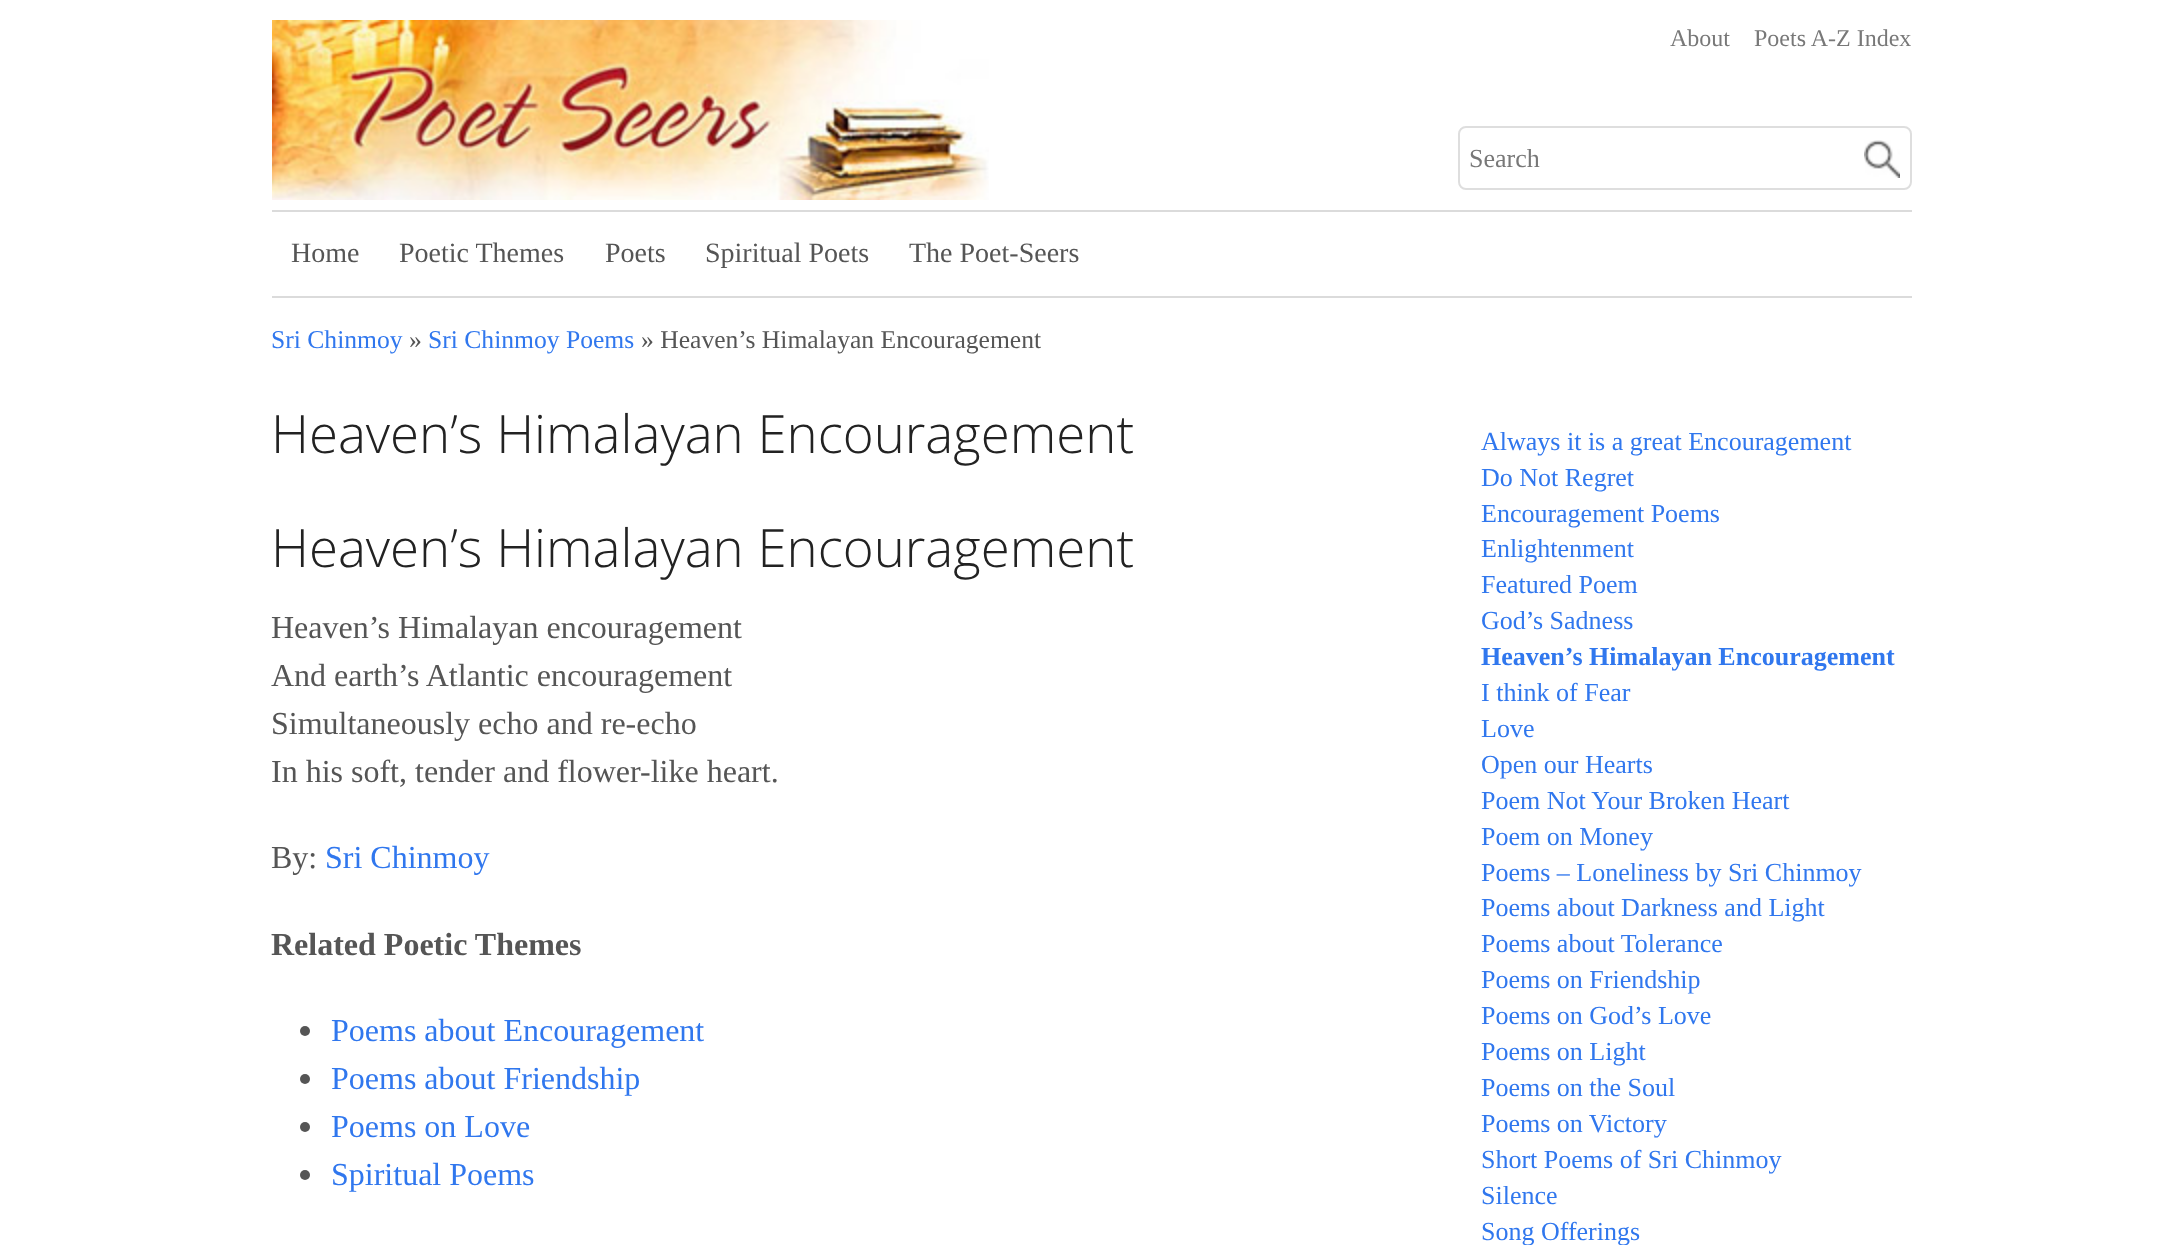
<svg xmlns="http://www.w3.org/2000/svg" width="2181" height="1245">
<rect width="100%" height="100%" fill="#fff"/>
<image x="272" y="20" width="717" height="180" href="media/1.png"/>
<text x="1670" y="46" style="font-family:Liberation Serif;font-size:24px;fill:#787878">About</text>
<text x="1754" y="46" style="font-family:Liberation Serif;font-size:24px;fill:#787878">Poets A-Z Index</text>
<image x="1864" y="140" width="36" height="38" href="media/2.png"/>
<rect x="1459" y="127" width="452" height="62" rx="7" fill="none" stroke="#dedede" stroke-width="2"/>
<text x="1469" y="167" style="font-family:Liberation Serif;font-size:26px;fill:#787878">Search</text>
<rect x="272" y="210" width="1640" height="2" fill="#dbdbdb"/>
<rect x="272" y="296" width="1640" height="2" fill="#dbdbdb"/>
<text x="291" y="262" style="font-family:Liberation Serif;font-size:28px;fill:#555">Home</text>
<text x="399" y="262" style="font-family:Liberation Serif;font-size:28px;fill:#555">Poetic Themes</text>
<text x="605" y="262" style="font-family:Liberation Serif;font-size:28px;fill:#555">Poets</text>
<text x="705" y="262" style="font-family:Liberation Serif;font-size:28px;fill:#555">Spiritual Poets</text>
<text x="909" y="262" style="font-family:Liberation Serif;font-size:28px;fill:#555">The Poet-Seers</text>
<text x="271" y="348" style="font-family:Liberation Serif;font-size:25.6px;fill:#3077ee">Sri Chinmoy</text>
<text x="409" y="348" style="font-family:Liberation Serif;font-size:25.6px;fill:#555">»</text>
<text x="428" y="348" style="font-family:Liberation Serif;font-size:25.6px;fill:#3077ee">Sri Chinmoy Poems</text>
<text x="641" y="348" style="font-family:Liberation Serif;font-size:25.6px;fill:#555">» Heaven’s Himalayan Encouragement</text>
<text x="271" y="453" style="font-family:Open Sans;font-size:52.75px;font-weight:300;fill:#222">Heaven’s Himalayan Encouragement</text>
<text x="271" y="567" style="font-family:Open Sans;font-size:52.75px;font-weight:300;fill:#222">Heaven’s Himalayan Encouragement</text>
<text x="271" y="638" style="font-family:Liberation Serif;font-size:32px;fill:#555">Heaven’s Himalayan encouragement</text>
<text x="271" y="686" style="font-family:Liberation Serif;font-size:32px;fill:#555">And earth’s Atlantic encouragement</text>
<text x="271" y="734" style="font-family:Liberation Serif;font-size:32px;fill:#555">Simultaneously echo and re-echo</text>
<text x="271" y="782" style="font-family:Liberation Serif;font-size:32px;fill:#555">In his soft, tender and flower-like heart.</text>
<text x="271" y="868" style="font-family:Liberation Serif;font-size:32px;fill:#555">By:</text>
<text x="325" y="868" style="font-family:Liberation Serif;font-size:32px;fill:#3077ee">Sri Chinmoy</text>
<text x="271" y="955" style="font-family:Liberation Serif;font-size:32px;font-weight:bold;fill:#555">Related Poetic Themes</text>
<circle cx="305" cy="1031" r="5" fill="#555"/>
<text x="331" y="1041" style="font-family:Liberation Serif;font-size:32px;fill:#3077ee">Poems about Encouragement</text>
<circle cx="305" cy="1079" r="5" fill="#555"/>
<text x="331" y="1089" style="font-family:Liberation Serif;font-size:32px;fill:#3077ee">Poems about Friendship</text>
<circle cx="305" cy="1127" r="5" fill="#555"/>
<text x="331" y="1137" style="font-family:Liberation Serif;font-size:32px;fill:#3077ee">Poems on Love</text>
<circle cx="305" cy="1175" r="5" fill="#555"/>
<text x="331" y="1185" style="font-family:Liberation Serif;font-size:32px;fill:#3077ee">Spiritual Poems</text>
<text x="1481" y="450" style="font-family:Liberation Serif;font-size:26px;fill:#3077ee">Always it is a great Encouragement</text>
<text x="1481" y="486" style="font-family:Liberation Serif;font-size:26px;fill:#3077ee">Do Not Regret</text>
<text x="1481" y="522" style="font-family:Liberation Serif;font-size:26px;fill:#3077ee">Encouragement Poems</text>
<text x="1481" y="557" style="font-family:Liberation Serif;font-size:26px;fill:#3077ee">Enlightenment</text>
<text x="1481" y="593" style="font-family:Liberation Serif;font-size:26px;fill:#3077ee">Featured Poem</text>
<text x="1481" y="629" style="font-family:Liberation Serif;font-size:26px;fill:#3077ee">God’s Sadness</text>
<text x="1481" y="665" style="font-family:Liberation Serif;font-size:26px;font-weight:bold;fill:#3077ee">Heaven’s Himalayan Encouragement</text>
<text x="1481" y="701" style="font-family:Liberation Serif;font-size:26px;fill:#3077ee">I think of Fear</text>
<text x="1481" y="737" style="font-family:Liberation Serif;font-size:26px;fill:#3077ee">Love</text>
<text x="1481" y="773" style="font-family:Liberation Serif;font-size:26px;fill:#3077ee">Open our Hearts</text>
<text x="1481" y="809" style="font-family:Liberation Serif;font-size:26px;fill:#3077ee">Poem Not Your Broken Heart</text>
<text x="1481" y="845" style="font-family:Liberation Serif;font-size:26px;fill:#3077ee">Poem on Money</text>
<text x="1481" y="881" style="font-family:Liberation Serif;font-size:26px;fill:#3077ee">Poems – Loneliness by Sri Chinmoy</text>
<text x="1481" y="916" style="font-family:Liberation Serif;font-size:26px;fill:#3077ee">Poems about Darkness and Light</text>
<text x="1481" y="952" style="font-family:Liberation Serif;font-size:26px;fill:#3077ee">Poems about Tolerance</text>
<text x="1481" y="988" style="font-family:Liberation Serif;font-size:26px;fill:#3077ee">Poems on Friendship</text>
<text x="1481" y="1024" style="font-family:Liberation Serif;font-size:26px;fill:#3077ee">Poems on God’s Love</text>
<text x="1481" y="1060" style="font-family:Liberation Serif;font-size:26px;fill:#3077ee">Poems on Light</text>
<text x="1481" y="1096" style="font-family:Liberation Serif;font-size:26px;fill:#3077ee">Poems on the Soul</text>
<text x="1481" y="1132" style="font-family:Liberation Serif;font-size:26px;fill:#3077ee">Poems on Victory</text>
<text x="1481" y="1168" style="font-family:Liberation Serif;font-size:26px;fill:#3077ee">Short Poems of Sri Chinmoy</text>
<text x="1481" y="1204" style="font-family:Liberation Serif;font-size:26px;fill:#3077ee">Silence</text>
<text x="1481" y="1240" style="font-family:Liberation Serif;font-size:26px;fill:#3077ee">Song Offerings</text>
</svg>
